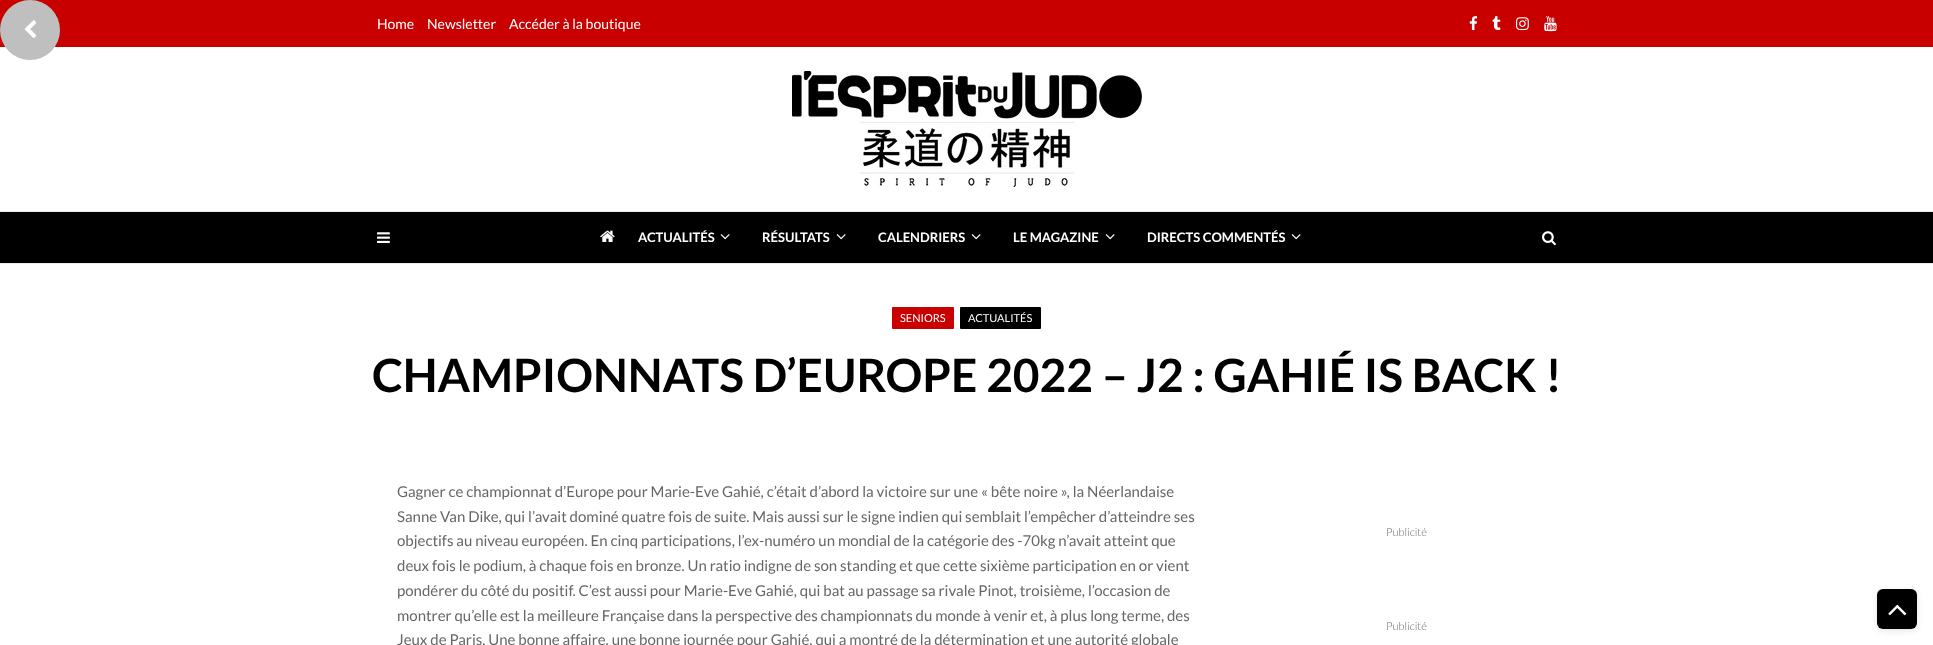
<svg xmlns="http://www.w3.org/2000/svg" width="1933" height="645">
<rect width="100%" height="100%" fill="#fff"/>
<rect width="1933" height="47" fill="#c90000"/>
<circle cx="30" cy="30" r="30" fill="#bfbfbf"/>
<image x="24" y="20" width="13" height="18" href="media/1.png"/>
<text x="377" y="29" style="font-family:Lato;font-size:14px;fill:#fff">Home</text>
<text x="427" y="29" style="font-family:Lato;font-size:14px;fill:#fff">Newsletter</text>
<text x="509" y="29" style="font-family:Lato;font-size:14px;fill:#fff">Accéder à la boutique</text>
<image x="1469" y="16" width="9" height="15" href="media/2.png"/>
<image x="1492" y="16" width="9" height="15" href="media/3.png"/>
<image x="1516" y="17" width="13" height="14" href="media/4.png"/>
<image x="1544" y="16" width="13" height="16" href="media/5.png"/>
<image x="792" y="71" width="350" height="116" href="media/6.png"/>
<rect y="212" width="1933" height="51" fill="#000"/>
<rect y="211" width="1933" height="1" fill="#eaeaea"/>
<rect y="263" width="1933" height="1" fill="#eaeaea"/>
<image x="377" y="232" width="13" height="11" href="media/7.png"/>
<image x="600" y="230" width="15" height="12" href="media/8.png"/>
<text x="638" y="242" style="font-family:Lato;font-size:13px;font-weight:bold;fill:#fff">ACTUALITÉS</text>
<image x="720" y="234" width="10" height="6" href="media/9.png"/>
<text x="762" y="242" style="font-family:Lato;font-size:13px;font-weight:bold;fill:#fff">RÉSULTATS</text>
<image x="836" y="234" width="10" height="6" href="media/9.png"/>
<text x="878" y="242" style="font-family:Lato;font-size:13px;font-weight:bold;fill:#fff">CALENDRIERS</text>
<image x="971" y="234" width="10" height="6" href="media/9.png"/>
<text x="1013" y="242" style="font-family:Lato;font-size:13px;font-weight:bold;fill:#fff">LE MAGAZINE</text>
<image x="1105" y="234" width="10" height="6" href="media/9.png"/>
<text x="1147" y="242" style="font-family:Lato;font-size:13px;font-weight:bold;fill:#fff">DIRECTS COMMENTÉS</text>
<image x="1291" y="234" width="10" height="6" href="media/9.png"/>
<image x="1542" y="231" width="14" height="15" href="media/10.png"/>
<rect x="892" y="307" width="62" height="22" rx="1" fill="#c90000"/>
<text x="900" y="322" style="font-family:Lato;font-size:11px;fill:#fff">SENIORS</text>
<rect x="960" y="307" width="81" height="22" rx="1" fill="#000"/>
<text x="968" y="322" style="font-family:Lato;font-size:11px;fill:#fff">ACTUALITÉS</text>
<text x="372" y="392" style="font-family:Lato;font-size:46px;font-weight:bold;fill:#000">CHAMPIONNATS D’EUROPE 2022 – J2 : GAHIÉ IS BACK !</text>
<text x="397" y="497" style="font-family:Lato;font-size:15px;fill:#666">Gagner ce championnat d’Europe pour Marie-Eve Gahié, c’était d’abord la victoire sur une « bête noire », la Néerlandaise</text>
<text x="397" y="522" style="font-family:Lato;font-size:15px;fill:#666">Sanne Van Dike, qui l’avait dominé quatre fois de suite. Mais aussi sur le signe indien qui semblait l’empêcher d’atteindre ses</text>
<text x="397" y="546" style="font-family:Lato;font-size:15px;fill:#666">objectifs au niveau européen. En cinq participations, l’ex-numéro un mondial de la catégorie des -70kg n’avait atteint que</text>
<text x="397" y="571" style="font-family:Lato;font-size:15px;fill:#666">deux fois le podium, à chaque fois en bronze. Un ratio indigne de son standing et que cette sixième participation en or vient</text>
<text x="397" y="596" style="font-family:Lato;font-size:15px;fill:#666">pondérer du côté du positif. C’est aussi pour Marie-Eve Gahié, qui bat au passage sa rivale Pinot, troisième, l’occasion de</text>
<text x="397" y="621" style="font-family:Lato;font-size:15px;fill:#666">montrer qu’elle est la meilleure Française dans la perspective des championnats du monde à venir et, à plus long terme, des</text>
<text x="397" y="645" style="font-family:Lato;font-size:15px;fill:#666">Jeux de Paris. Une bonne affaire, une bonne journée pour Gahié, qui a montré de la détermination et une autorité globale</text>
<text x="1386" y="536" style="font-family:Lato;font-size:11px;font-weight:300;fill:#666">Publicité</text>
<text x="1386" y="630" style="font-family:Lato;font-size:11px;font-weight:300;fill:#666">Publicité</text>
<rect x="1877" y="591" width="40" height="40" rx="6" fill="#0000001a" filter="blur(3px)"/>
<rect x="1877" y="589" width="40" height="40" rx="6" fill="#000"/>
<image x="1888" y="604" width="19" height="12" href="media/11.png"/>
</svg>
